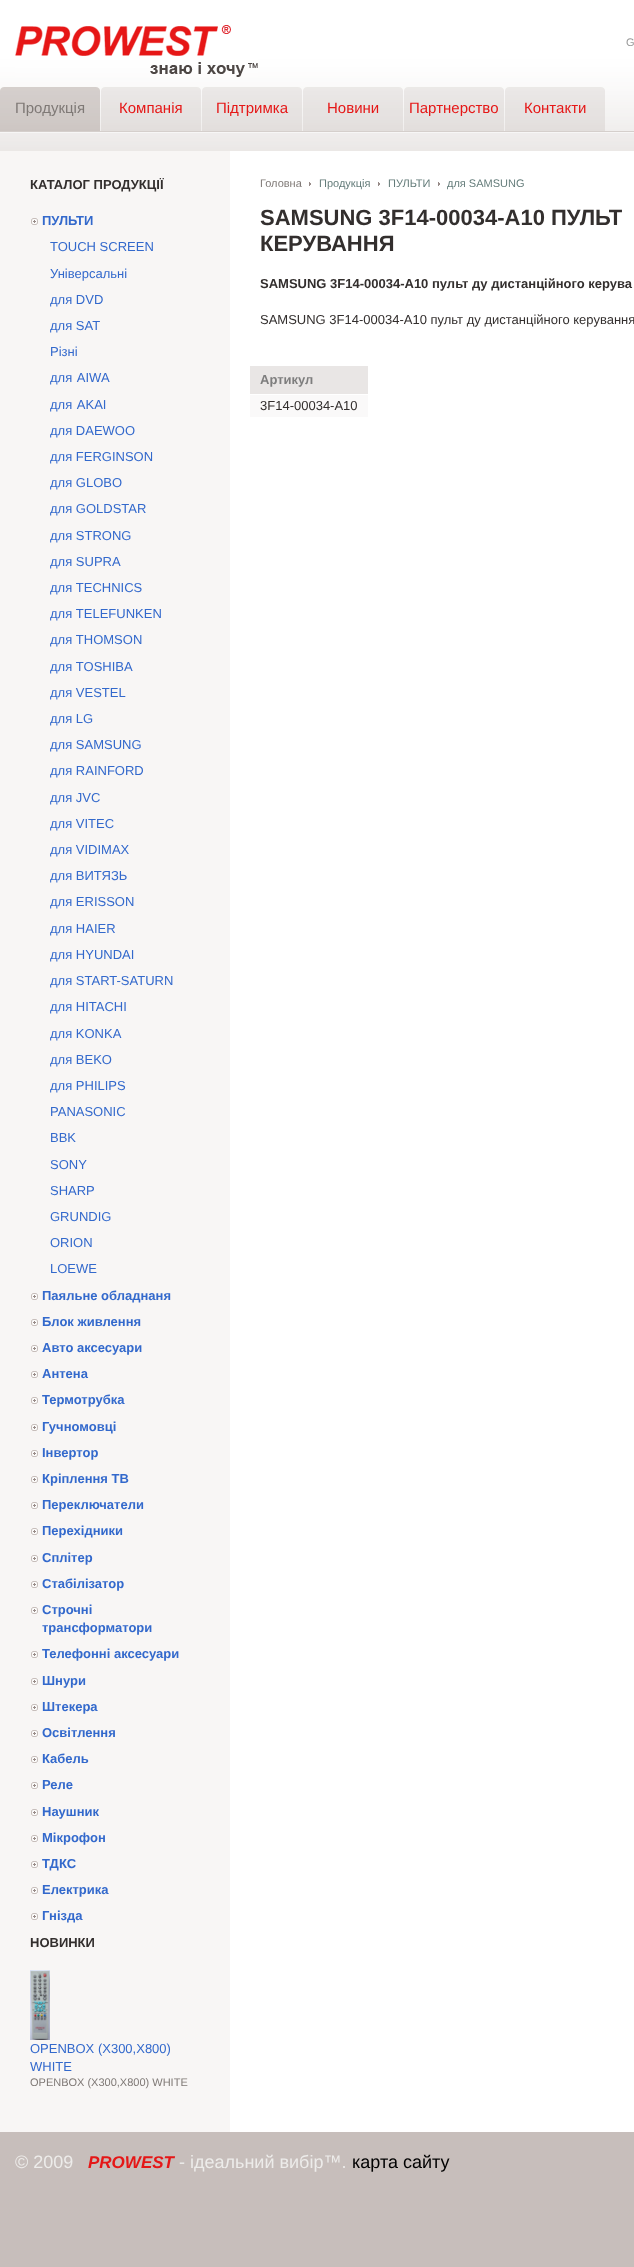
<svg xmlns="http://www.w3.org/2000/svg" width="634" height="2267">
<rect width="100%" height="100%" fill="#c7bebb"/>
<image x="0" y="0" width="634" height="151" href="media/1.png"/>
<image x="15" y="25" width="243" height="52" href="media/2.png"/>
<text x="626" y="46" style="font-family:Liberation Sans;font-size:11px;fill:#999">G</text>
<image x="0" y="87" width="100" height="44" href="media/3.png"/>
<text x="15" y="113" style="font-family:Liberation Sans;font-size:15px;fill:#7f7976">Продукція</text>
<image x="101" y="87" width="100" height="44" href="media/4.png"/>
<text x="119" y="113" style="font-family:Liberation Sans;font-size:15px;fill:#e51717">Компанія</text>
<image x="202" y="87" width="100" height="44" href="media/4.png"/>
<text x="216" y="113" style="font-family:Liberation Sans;font-size:15px;fill:#e51717">Підтримка</text>
<image x="303" y="87" width="100" height="44" href="media/4.png"/>
<text x="327" y="113" style="font-family:Liberation Sans;font-size:15px;fill:#e51717">Новини</text>
<image x="404" y="87" width="100" height="44" href="media/4.png"/>
<text x="409" y="113" style="font-family:Liberation Sans;font-size:15px;fill:#e51717">Партнерство</text>
<image x="505" y="87" width="100" height="44" href="media/4.png"/>
<text x="524" y="113" style="font-family:Liberation Sans;font-size:15px;fill:#e51717">Контакти</text>
<rect x="230" y="151" width="404" height="1981" fill="#fff"/>
<rect y="151" width="230" height="1981" fill="#f8f6f5"/>
<text x="30" y="189" style="font-family:Liberation Sans;font-size:13px;font-weight:bold;fill:#332f2e">КАТАЛОГ ПРОДУКЦІЇ</text>
<image x="31" y="218" width="7" height="7" href="media/5.png"/>
<text x="42" y="225" style="font-family:Liberation Sans;font-size:13px;font-weight:bold;fill:#3369cc">ПУЛЬТИ</text>
<text x="50" y="251" style="font-family:Liberation Sans;font-size:13px;fill:#3369cc">TOUCH SCREEN</text>
<text x="50" y="278" style="font-family:Liberation Sans;font-size:13px;fill:#3369cc">Універсальні</text>
<text x="50" y="304" style="font-family:Liberation Sans;font-size:13px;fill:#3369cc">для DVD</text>
<text x="50" y="330" style="font-family:Liberation Sans;font-size:13px;fill:#3369cc">для SAT</text>
<text x="50" y="356" style="font-family:Liberation Sans;font-size:13px;fill:#3369cc">Різні</text>
<text x="50" y="382" word-spacing="1" style="font-family:Liberation Sans;font-size:13px;fill:#3369cc">для AIWA</text>
<text x="50" y="409" word-spacing="1" style="font-family:Liberation Sans;font-size:13px;fill:#3369cc">для AKAI</text>
<text x="50" y="435" style="font-family:Liberation Sans;font-size:13px;fill:#3369cc">для DAEWOO</text>
<text x="50" y="461" style="font-family:Liberation Sans;font-size:13px;fill:#3369cc">для FERGINSON</text>
<text x="50" y="487" style="font-family:Liberation Sans;font-size:13px;fill:#3369cc">для GLOBO</text>
<text x="50" y="513" style="font-family:Liberation Sans;font-size:13px;fill:#3369cc">для GOLDSTAR</text>
<text x="50" y="540" style="font-family:Liberation Sans;font-size:13px;fill:#3369cc">для STRONG</text>
<text x="50" y="566" style="font-family:Liberation Sans;font-size:13px;fill:#3369cc">для SUPRA</text>
<text x="50" y="592" style="font-family:Liberation Sans;font-size:13px;fill:#3369cc">для TECHNICS</text>
<text x="50" y="618" style="font-family:Liberation Sans;font-size:13px;fill:#3369cc">для TELEFUNKEN</text>
<text x="50" y="644" style="font-family:Liberation Sans;font-size:13px;fill:#3369cc">для THOMSON</text>
<text x="50" y="671" style="font-family:Liberation Sans;font-size:13px;fill:#3369cc">для TOSHIBA</text>
<text x="50" y="697" style="font-family:Liberation Sans;font-size:13px;fill:#3369cc">для VESTEL</text>
<text x="50" y="723" style="font-family:Liberation Sans;font-size:13px;fill:#3369cc">для LG</text>
<text x="50" y="749" style="font-family:Liberation Sans;font-size:13px;fill:#3369cc">для SAMSUNG</text>
<text x="50" y="775" style="font-family:Liberation Sans;font-size:13px;fill:#3369cc">для RAINFORD</text>
<text x="50" y="802" style="font-family:Liberation Sans;font-size:13px;fill:#3369cc">для JVC</text>
<text x="50" y="828" style="font-family:Liberation Sans;font-size:13px;fill:#3369cc">для VITEC</text>
<text x="50" y="854" style="font-family:Liberation Sans;font-size:13px;fill:#3369cc">для VIDIMAX</text>
<text x="50" y="880" style="font-family:Liberation Sans;font-size:13px;fill:#3369cc">для ВИТЯЗЬ</text>
<text x="50" y="906" style="font-family:Liberation Sans;font-size:13px;fill:#3369cc">для ERISSON</text>
<text x="50" y="933" style="font-family:Liberation Sans;font-size:13px;fill:#3369cc">для HAIER</text>
<text x="50" y="959" style="font-family:Liberation Sans;font-size:13px;fill:#3369cc">для HYUNDAI</text>
<text x="50" y="985" style="font-family:Liberation Sans;font-size:13px;fill:#3369cc">для START-SATURN</text>
<text x="50" y="1011" style="font-family:Liberation Sans;font-size:13px;fill:#3369cc">для HITACHI</text>
<text x="50" y="1038" style="font-family:Liberation Sans;font-size:13px;fill:#3369cc">для KONKA</text>
<text x="50" y="1064" style="font-family:Liberation Sans;font-size:13px;fill:#3369cc">для BEKO</text>
<text x="50" y="1090" style="font-family:Liberation Sans;font-size:13px;fill:#3369cc">для PHILIPS</text>
<text x="50" y="1116" style="font-family:Liberation Sans;font-size:13px;fill:#3369cc">PANASONIC</text>
<text x="50" y="1142" style="font-family:Liberation Sans;font-size:13px;fill:#3369cc">BBK</text>
<text x="50" y="1169" style="font-family:Liberation Sans;font-size:13px;fill:#3369cc">SONY</text>
<text x="50" y="1195" style="font-family:Liberation Sans;font-size:13px;fill:#3369cc">SHARP</text>
<text x="50" y="1221" style="font-family:Liberation Sans;font-size:13px;fill:#3369cc">GRUNDIG</text>
<text x="50" y="1247" style="font-family:Liberation Sans;font-size:13px;fill:#3369cc">ORION</text>
<text x="50" y="1273" style="font-family:Liberation Sans;font-size:13px;fill:#3369cc">LOEWE</text>
<image x="31" y="1293" width="7" height="7" href="media/5.png"/>
<text x="42" y="1300" style="font-family:Liberation Sans;font-size:13px;font-weight:bold;fill:#3369cc">Паяльне обладнаня</text>
<image x="31" y="1319" width="7" height="7" href="media/5.png"/>
<text x="42" y="1326" style="font-family:Liberation Sans;font-size:13px;font-weight:bold;fill:#3369cc">Блок живлення</text>
<image x="31" y="1345" width="7" height="7" href="media/5.png"/>
<text x="42" y="1352" style="font-family:Liberation Sans;font-size:13px;font-weight:bold;fill:#3369cc">Авто аксесуари</text>
<image x="31" y="1371" width="7" height="7" href="media/5.png"/>
<text x="42" y="1378" style="font-family:Liberation Sans;font-size:13px;font-weight:bold;fill:#3369cc">Антена</text>
<image x="31" y="1397" width="7" height="7" href="media/5.png"/>
<text x="42" y="1404" style="font-family:Liberation Sans;font-size:13px;font-weight:bold;fill:#3369cc">Термотрубка</text>
<image x="31" y="1424" width="7" height="7" href="media/5.png"/>
<text x="42" y="1431" style="font-family:Liberation Sans;font-size:13px;font-weight:bold;fill:#3369cc">Гучномовці</text>
<image x="31" y="1450" width="7" height="7" href="media/5.png"/>
<text x="42" y="1457" style="font-family:Liberation Sans;font-size:13px;font-weight:bold;fill:#3369cc">Інвертор</text>
<image x="31" y="1476" width="7" height="7" href="media/5.png"/>
<text x="42" y="1483" style="font-family:Liberation Sans;font-size:13px;font-weight:bold;fill:#3369cc">Кріплення ТВ</text>
<image x="31" y="1502" width="7" height="7" href="media/5.png"/>
<text x="42" y="1509" style="font-family:Liberation Sans;font-size:13px;font-weight:bold;fill:#3369cc">Переключатели</text>
<image x="31" y="1528" width="7" height="7" href="media/5.png"/>
<text x="42" y="1535" style="font-family:Liberation Sans;font-size:13px;font-weight:bold;fill:#3369cc">Перехідники</text>
<image x="31" y="1555" width="7" height="7" href="media/5.png"/>
<text x="42" y="1562" style="font-family:Liberation Sans;font-size:13px;font-weight:bold;fill:#3369cc">Сплітер</text>
<image x="31" y="1581" width="7" height="7" href="media/5.png"/>
<text x="42" y="1588" style="font-family:Liberation Sans;font-size:13px;font-weight:bold;fill:#3369cc">Стабілізатор</text>
<image x="31" y="1607" width="7" height="7" href="media/5.png"/>
<text x="42" y="1614" style="font-family:Liberation Sans;font-size:13px;font-weight:bold;fill:#3369cc">Строчні</text>
<text x="42" y="1632" style="font-family:Liberation Sans;font-size:13px;font-weight:bold;fill:#3369cc">трансформатори</text>
<image x="31" y="1651" width="7" height="7" href="media/5.png"/>
<text x="42" y="1658" style="font-family:Liberation Sans;font-size:13px;font-weight:bold;fill:#3369cc">Телефонні аксесуари</text>
<image x="31" y="1678" width="7" height="7" href="media/5.png"/>
<text x="42" y="1685" style="font-family:Liberation Sans;font-size:13px;font-weight:bold;fill:#3369cc">Шнури</text>
<image x="31" y="1704" width="7" height="7" href="media/5.png"/>
<text x="42" y="1711" style="font-family:Liberation Sans;font-size:13px;font-weight:bold;fill:#3369cc">Штекера</text>
<image x="31" y="1730" width="7" height="7" href="media/5.png"/>
<text x="42" y="1737" style="font-family:Liberation Sans;font-size:13px;font-weight:bold;fill:#3369cc">Освітлення</text>
<image x="31" y="1756" width="7" height="7" href="media/5.png"/>
<text x="42" y="1763" style="font-family:Liberation Sans;font-size:13px;font-weight:bold;fill:#3369cc">Кабель</text>
<image x="31" y="1782" width="7" height="7" href="media/5.png"/>
<text x="42" y="1789" style="font-family:Liberation Sans;font-size:13px;font-weight:bold;fill:#3369cc">Реле</text>
<image x="31" y="1809" width="7" height="7" href="media/5.png"/>
<text x="42" y="1816" style="font-family:Liberation Sans;font-size:13px;font-weight:bold;fill:#3369cc">Наушник</text>
<image x="31" y="1835" width="7" height="7" href="media/5.png"/>
<text x="42" y="1842" style="font-family:Liberation Sans;font-size:13px;font-weight:bold;fill:#3369cc">Мікрофон</text>
<image x="31" y="1861" width="7" height="7" href="media/5.png"/>
<text x="42" y="1868" style="font-family:Liberation Sans;font-size:13px;font-weight:bold;fill:#3369cc">ТДКС</text>
<image x="31" y="1887" width="7" height="7" href="media/5.png"/>
<text x="42" y="1894" style="font-family:Liberation Sans;font-size:13px;font-weight:bold;fill:#3369cc">Електрика</text>
<image x="31" y="1913" width="7" height="7" href="media/5.png"/>
<text x="42" y="1920" style="font-family:Liberation Sans;font-size:13px;font-weight:bold;fill:#3369cc">Гнізда</text>
<text x="30" y="1947" style="font-family:Liberation Sans;font-size:13px;font-weight:bold;fill:#332f2e">НОВИНКИ</text>
<image x="30" y="1970" width="20" height="70" href="media/6.png"/>
<text x="30" y="2053" style="font-family:Liberation Sans;font-size:13px;fill:#3369cc">OPENBOX (X300,X800)</text>
<text x="30" y="2071" style="font-family:Liberation Sans;font-size:13px;fill:#3369cc">WHITE</text>
<text x="30" y="2086" style="font-family:Liberation Sans;font-size:11px;fill:#7f7976">OPENBOX (X300,X800) WHITE</text>
<text x="260" y="187" style="font-family:Liberation Sans;font-size:11px;fill:#7f7976">Головна</text>
<image x="309" y="182" width="2" height="4" href="media/7.png"/>
<text x="319" y="187" style="font-family:Liberation Sans;font-size:11px;fill:#647c7a">Продукція</text>
<image x="378" y="182" width="2" height="4" href="media/7.png"/>
<text x="388" y="187" style="font-family:Liberation Sans;font-size:11px;fill:#647c7a">ПУЛЬТИ</text>
<image x="438" y="182" width="2" height="4" href="media/7.png"/>
<text x="447" y="187" style="font-family:Liberation Sans;font-size:11px;fill:#647c7a">для SAMSUNG</text>
<text x="260" y="225" style="font-family:Liberation Sans;font-size:22px;font-weight:bold;fill:#332f2e">SAMSUNG 3F14-00034-A10 ПУЛЬТ</text>
<text x="260" y="251" style="font-family:Liberation Sans;font-size:22px;font-weight:bold;fill:#332f2e">КЕРУВАННЯ</text>
<text x="260" y="288" style="font-family:Liberation Sans;font-size:13px;font-weight:bold;fill:#332f2e">SAMSUNG 3F14-00034-A10 пульт ду дистанційного керува</text>
<text x="260" y="324" style="font-family:Liberation Sans;font-size:13px;fill:#332f2e">SAMSUNG 3F14-00034-A10 пульт ду дистанційного керування</text>
<rect x="250" y="366" width="118" height="28" fill="#e9e6e5"/>
<text x="260" y="384" style="font-family:Liberation Sans;font-size:13px;font-weight:bold;fill:#7e7e7e">Артикул</text>
<rect x="250" y="395" width="118" height="22" fill="#faf9f9"/>
<text x="260" y="410" style="font-family:Liberation Sans;font-size:13px;fill:#332f2e">3F14-00034-A10</text>
<text x="15" y="2168" style="font-family:Liberation Sans;font-size:18px;fill:#edecea">© 2009</text>
<text x="88" y="2168" style="font-family:Liberation Sans;font-size:17px;font-weight:bold;font-style:italic;fill:#e51717">PROWEST</text>
<text x="179" y="2168" style="font-family:Liberation Sans;font-size:18px;fill:#edecea">- ідеальний вибір™.</text>
<text x="352" y="2168" style="font-family:Liberation Sans;font-size:18px;fill:#000">карта сайту</text>
</svg>
